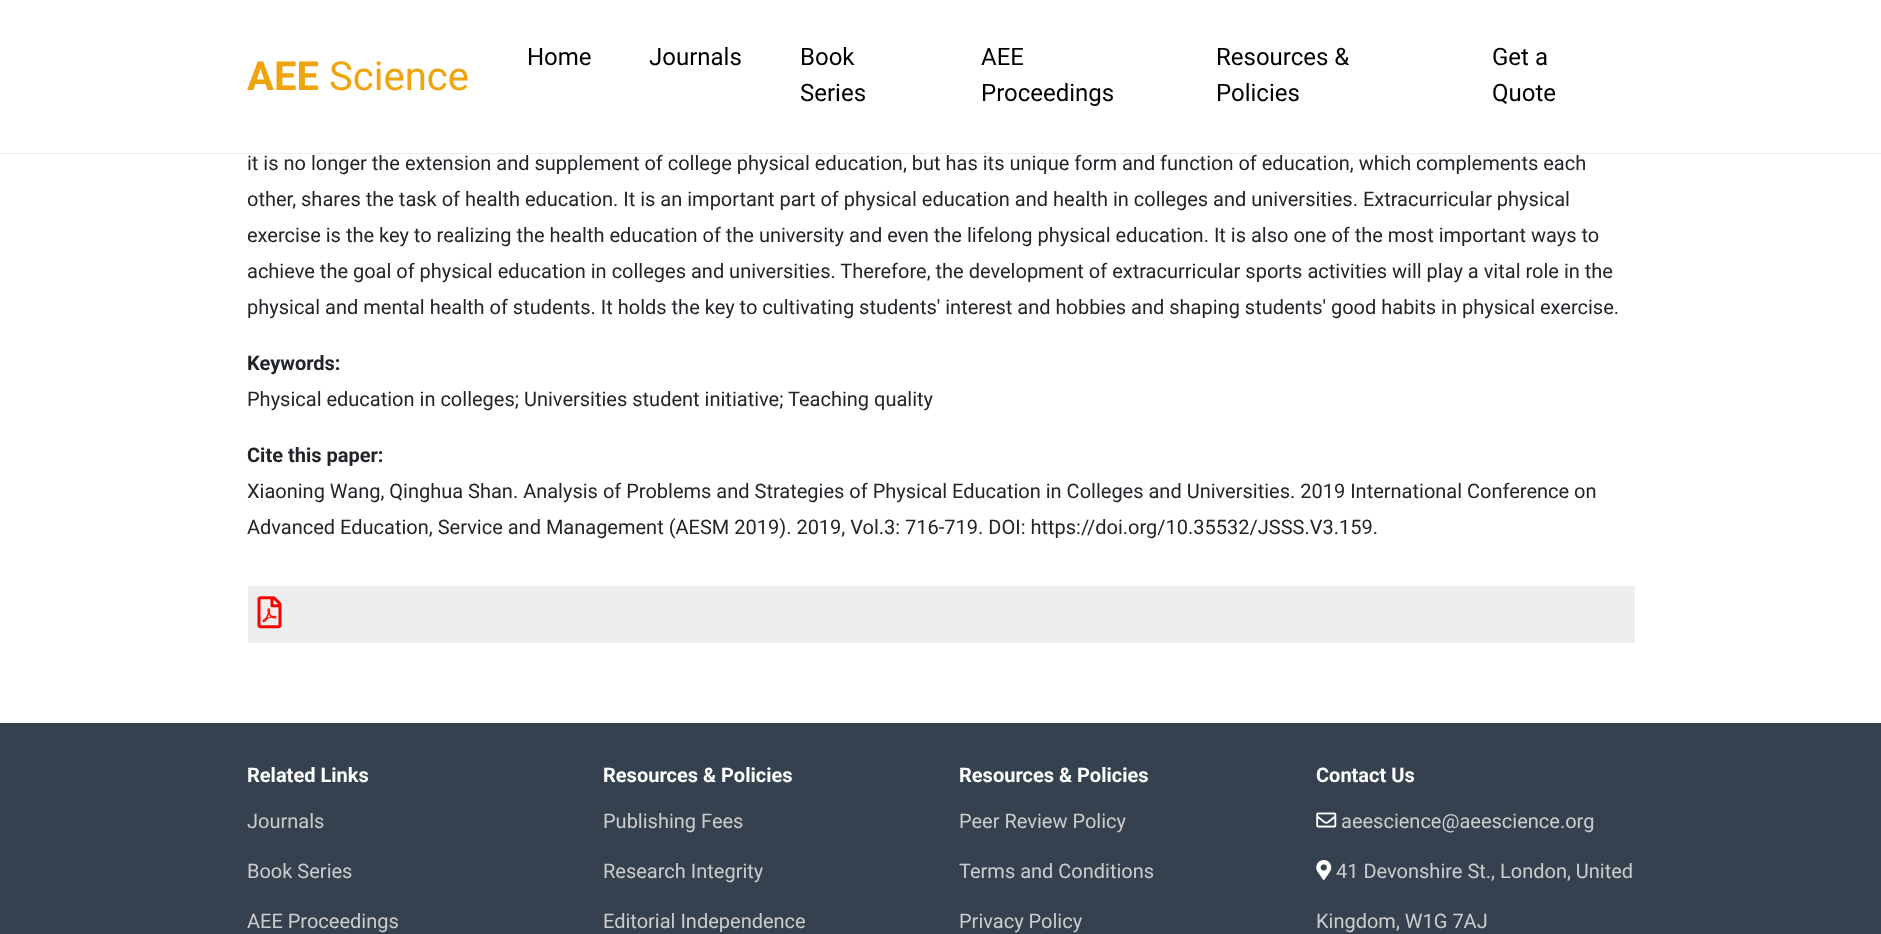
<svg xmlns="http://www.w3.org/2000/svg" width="1881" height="934">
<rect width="100%" height="100%" fill="#fff"/>
<rect y="153" width="1881" height="1" fill="#eeedeb"/>
<text x="247" y="90" style="font-family:Roboto;font-size:40px;font-weight:bold;fill:#f0a40c">AEE</text>
<text x="329" y="90" style="font-family:Roboto;font-size:40px;fill:#f0a40c">Science</text>
<text x="527" y="65" style="font-family:Roboto;font-size:24px;fill:#000">Home</text>
<text x="649" y="65" style="font-family:Roboto;font-size:24px;fill:#000">Journals</text>
<text x="800" y="65" style="font-family:Roboto;font-size:24px;fill:#000">Book</text>
<text x="800" y="101" style="font-family:Roboto;font-size:24px;fill:#000">Series</text>
<text x="981" y="65" style="font-family:Roboto;font-size:24px;fill:#000">AEE</text>
<text x="981" y="101" style="font-family:Roboto;font-size:24px;fill:#000">Proceedings</text>
<text x="1216" y="65" style="font-family:Roboto;font-size:24px;fill:#000">Resources &amp;</text>
<text x="1216" y="101" style="font-family:Roboto;font-size:24px;fill:#000">Policies</text>
<text x="1492" y="65" style="font-family:Roboto;font-size:24px;fill:#000">Get a</text>
<text x="1492" y="101" style="font-family:Roboto;font-size:24px;fill:#000">Quote</text>
<text x="247" y="170" style="font-family:Roboto;font-size:20px;fill:#212529">it is no longer the extension and supplement of college physical education, but has its unique form and function of education, which complements each</text>
<text x="247" y="206" style="font-family:Roboto;font-size:20px;fill:#212529">other, shares the task of health education. It is an important part of physical education and health in colleges and universities. Extracurricular physical</text>
<text x="247" y="242" style="font-family:Roboto;font-size:20px;fill:#212529">exercise is the key to realizing the health education of the university and even the lifelong physical education. It is also one of the most important ways to</text>
<text x="247" y="278" style="font-family:Roboto;font-size:20px;fill:#212529">achieve the goal of physical education in colleges and universities. Therefore, the development of extracurricular sports activities will play a vital role in the</text>
<text x="247" y="314" style="font-family:Roboto;font-size:20px;fill:#212529">physical and mental health of students. It holds the key to cultivating students' interest and hobbies and shaping students' good habits in physical exercise.</text>
<text x="247" y="370" style="font-family:Roboto;font-size:20px;font-weight:bold;fill:#212529">Keywords:</text>
<text x="247" y="406" style="font-family:Roboto;font-size:20px;fill:#212529">Physical education in colleges; Universities student initiative; Teaching quality</text>
<text x="247" y="462" style="font-family:Roboto;font-size:20px;font-weight:bold;fill:#212529">Cite this paper:</text>
<text x="247" y="498" style="font-family:Roboto;font-size:20px;fill:#212529">Xiaoning Wang, Qinghua Shan. Analysis of Problems and Strategies of Physical Education in Colleges and Universities. 2019 International Conference on</text>
<text x="247" y="534" style="font-family:Roboto;font-size:20px;fill:#212529">Advanced Education, Service and Management (AESM 2019). 2019, Vol.3: 716-719. DOI: https://doi.org/10.35532/JSSS.V3.159.</text>
<rect x="248" y="586" width="1387" height="57" fill="#eee"/>
<image x="257" y="596" width="25" height="33" href="media/1.png"/>
<rect y="723" width="1881" height="211" fill="#35414e"/>
<text x="247" y="782" style="font-family:Roboto;font-size:20px;font-weight:bold;fill:#fff">Related Links</text>
<text x="247" y="828" style="font-family:Roboto;font-size:20px;fill:#ccc">Journals</text>
<text x="247" y="878" style="font-family:Roboto;font-size:20px;fill:#ccc">Book Series</text>
<text x="247" y="928" style="font-family:Roboto;font-size:20px;fill:#ccc">AEE Proceedings</text>
<text x="603" y="782" style="font-family:Roboto;font-size:20px;font-weight:bold;fill:#fff">Resources &amp; Policies</text>
<text x="603" y="828" style="font-family:Roboto;font-size:20px;fill:#ccc">Publishing Fees</text>
<text x="603" y="878" style="font-family:Roboto;font-size:20px;fill:#ccc">Research Integrity</text>
<text x="603" y="928" style="font-family:Roboto;font-size:20px;fill:#ccc">Editorial Independence</text>
<text x="959" y="782" style="font-family:Roboto;font-size:20px;font-weight:bold;fill:#fff">Resources &amp; Policies</text>
<text x="959" y="828" style="font-family:Roboto;font-size:20px;fill:#ccc">Peer Review Policy</text>
<text x="959" y="878" style="font-family:Roboto;font-size:20px;fill:#ccc">Terms and Conditions</text>
<text x="959" y="928" style="font-family:Roboto;font-size:20px;fill:#ccc">Privacy Policy</text>
<text x="1316" y="782" style="font-family:Roboto;font-size:20px;font-weight:bold;fill:#fff">Contact Us</text>
<image x="1316" y="812" width="21" height="16" href="media/2.png"/>
<text x="1341" y="828" style="font-family:Roboto;font-size:20px;fill:#ccc">aeescience@aeescience.org</text>
<image x="1316" y="860" width="16" height="20" href="media/3.png"/>
<text x="1336" y="878" style="font-family:Roboto;font-size:20px;fill:#ccc">41 Devonshire St., London, United</text>
<text x="1316" y="928" style="font-family:Roboto;font-size:20px;fill:#ccc">Kingdom, W1G 7AJ</text>
</svg>
